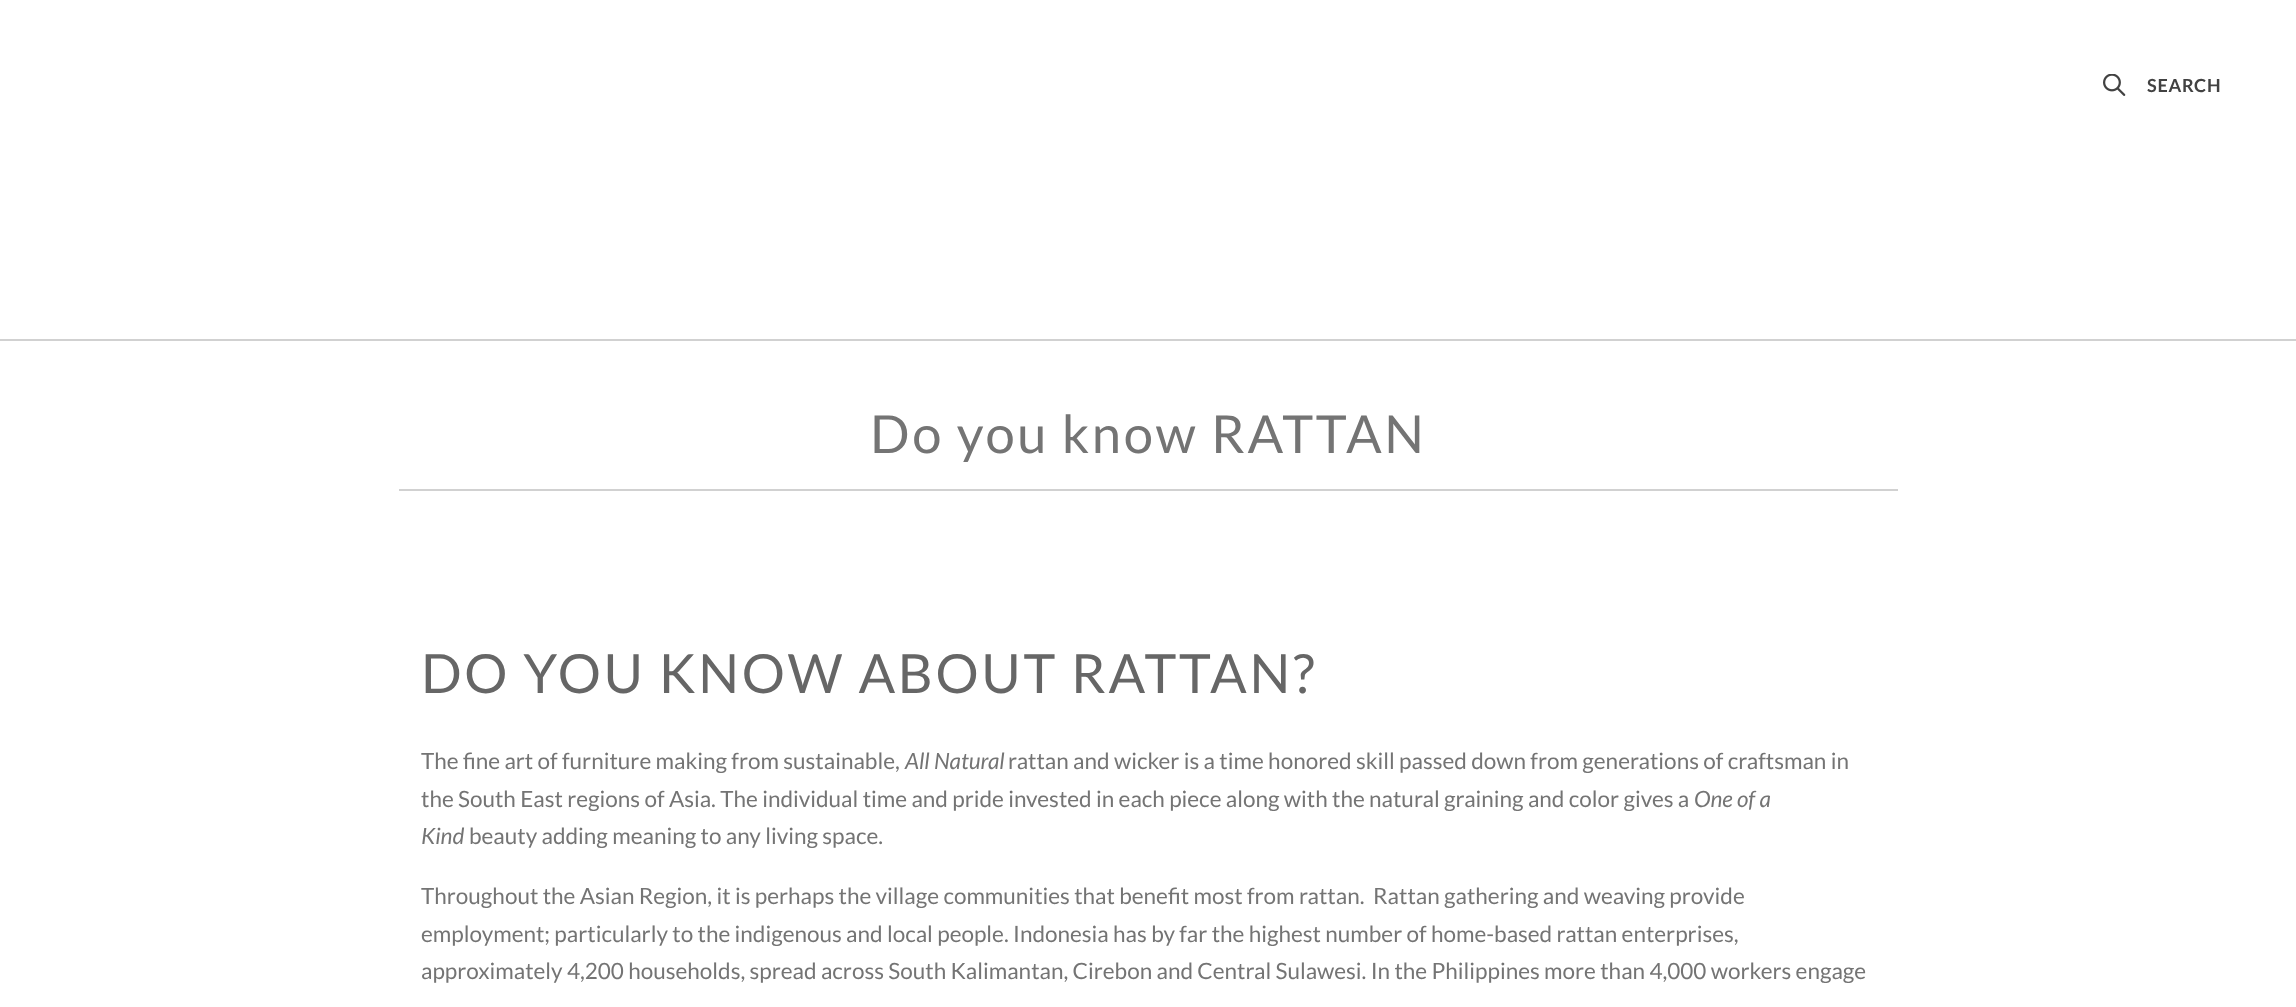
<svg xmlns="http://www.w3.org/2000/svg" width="2296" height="1007">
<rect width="100%" height="100%" fill="#fff"/>
<image x="2103" y="74" width="23" height="22" href="media/1.png"/>
<text x="2147" y="92" style="font-family:Lato;font-size:18px;font-weight:bold;letter-spacing:0.75px;fill:#424242">SEARCH</text>
<rect y="339" width="2296" height="2" fill="#d1d1d1"/>
<text x="870" y="453" style="font-family:Lato;font-size:52.5px;letter-spacing:2.6px;fill:#747474">Do you know RATTAN</text>
<rect x="399" y="489" width="1499" height="2" fill="#d1d1d1"/>
<text x="421" y="693" style="font-family:Lato;font-size:54px;letter-spacing:2.7px;fill:#666">DO YOU KNOW ABOUT RATTAN?</text>
<text x="421" y="769" style="font-family:Lato;font-size:22.5px;fill:#747474">The fine art of furniture making from sustainable,</text>
<text x="905" y="769" style="font-family:Lato;font-size:22.5px;font-style:italic;fill:#747474">All Natural</text>
<text x="1008" y="769" style="font-family:Lato;font-size:22.5px;fill:#747474">rattan and wicker is a time honored skill passed down from generations of craftsman in</text>
<text x="421" y="807" style="font-family:Lato;font-size:22.5px;fill:#747474">the South East regions of Asia. The individual time and pride invested in each piece along with the natural graining and color gives a</text>
<text x="1694" y="807" style="font-family:Lato;font-size:22.5px;font-style:italic;fill:#747474">One of a</text>
<text x="421" y="844" style="font-family:Lato;font-size:22.5px;font-style:italic;fill:#747474">Kind</text>
<text x="469" y="844" style="font-family:Lato;font-size:22.5px;fill:#747474">beauty adding meaning to any living space.</text>
<text x="421" y="904" style="font-family:Lato;font-size:22.5px;fill:#747474" xml:space="preserve">Throughout the Asian Region, it is perhaps the village communities that benefit most from rattan.  Rattan gathering and weaving provide</text>
<text x="421" y="942" style="font-family:Lato;font-size:22.5px;fill:#747474">employment; particularly to the indigenous and local people. Indonesia has by far the highest number of home-based rattan enterprises,</text>
<text x="421" y="979" style="font-family:Lato;font-size:22.5px;fill:#747474">approximately 4,200 households, spread across South Kalimantan, Cirebon and Central Sulawesi. In the Philippines more than 4,000 workers engage</text>
</svg>
